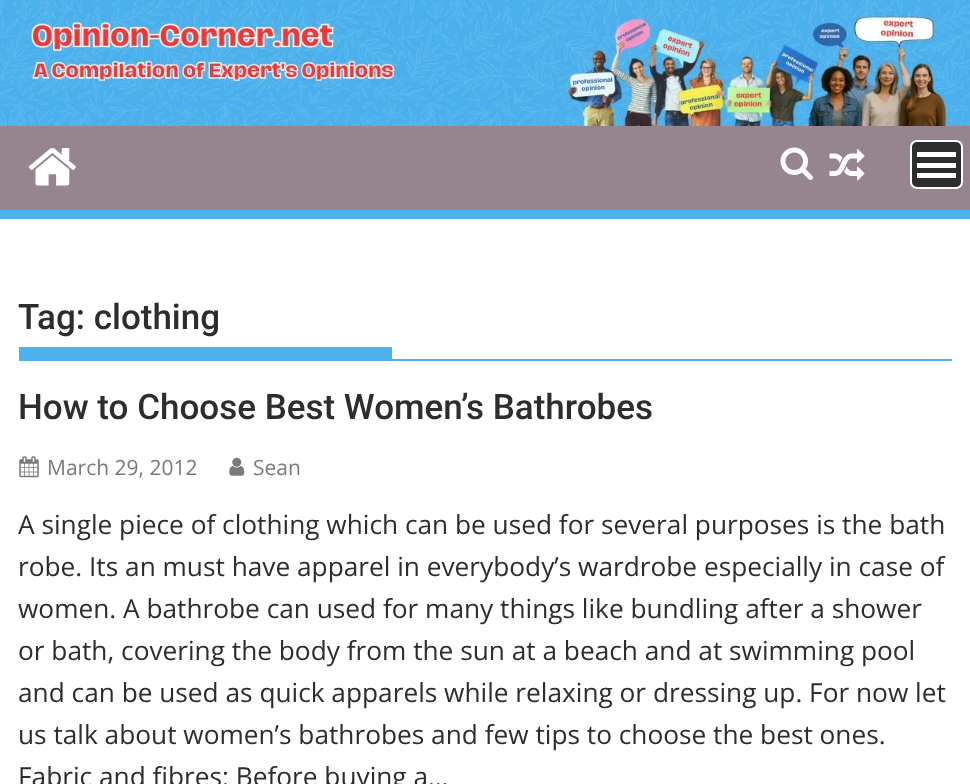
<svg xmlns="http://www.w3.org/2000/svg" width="970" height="784">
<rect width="100%" height="100%" fill="#fff"/>
<image x="0" y="0" width="970" height="126" href="media/1.png"/>
<rect y="126" width="970" height="84" fill="#96858f"/>
<rect y="210" width="970" height="9" fill="#4db2ec"/>
<image x="28" y="147" width="48" height="39" href="media/2.png"/>
<image x="780" y="147" width="33" height="33" href="media/3.png"/>
<image x="829" y="149" width="36" height="32" href="media/4.png"/>
<rect x="911" y="141" width="51" height="47" rx="6" fill="#2d2d2d" stroke="#fff" stroke-width="2"/>
<rect x="917" y="173" width="39" height="5" fill="#fff"/>
<rect x="917" y="163" width="39" height="5" fill="#fff"/>
<rect x="917" y="152" width="39" height="5" fill="#fff"/>
<rect x="19" y="359" width="933" height="2" fill="#4db2ec"/>
<text x="18" y="329" style="font-family:Roboto;font-size:35px;font-weight:500;fill:#2d2d2d">Tag: clothing</text>
<rect x="19" y="347" width="373" height="12" fill="#4db2ec"/>
<text x="18" y="419" style="font-family:Roboto;font-size:35px;font-weight:500;fill:#2d2d2d">How to Choose Best Women’s Bathrobes</text>
<image x="19" y="456" width="20" height="22" href="media/5.png"/>
<text x="47" y="475" style="font-family:Open Sans;font-size:21px;fill:#7a7a7a">March 29, 2012</text>
<image x="229" y="457" width="16" height="19" href="media/6.png"/>
<text x="253" y="475" style="font-family:Open Sans;font-size:21px;fill:#7a7a7a">Sean</text>
<text x="18" y="534" style="font-family:Open Sans;font-size:26.25px;fill:#2d2d2d">A single piece of clothing which can be used for several purposes is the bath</text>
<text x="18" y="576" style="font-family:Open Sans;font-size:26.25px;fill:#2d2d2d">robe. Its an must have apparel in everybody’s wardrobe especially in case of</text>
<text x="18" y="618" style="font-family:Open Sans;font-size:26.25px;fill:#2d2d2d">women. A bathrobe can used for many things like bundling after a shower</text>
<text x="18" y="660" style="font-family:Open Sans;font-size:26.25px;fill:#2d2d2d">or bath, covering the body from the sun at a beach and at swimming pool</text>
<text x="18" y="702" style="font-family:Open Sans;font-size:26.25px;fill:#2d2d2d">and can be used as quick apparels while relaxing or dressing up. For now let</text>
<text x="18" y="744" style="font-family:Open Sans;font-size:26.25px;fill:#2d2d2d">us talk about women’s bathrobes and few tips to choose the best ones.</text>
<text x="18" y="786" style="font-family:Open Sans;font-size:26.25px;fill:#2d2d2d">Fabric and fibres: Before buying a…</text>
</svg>
